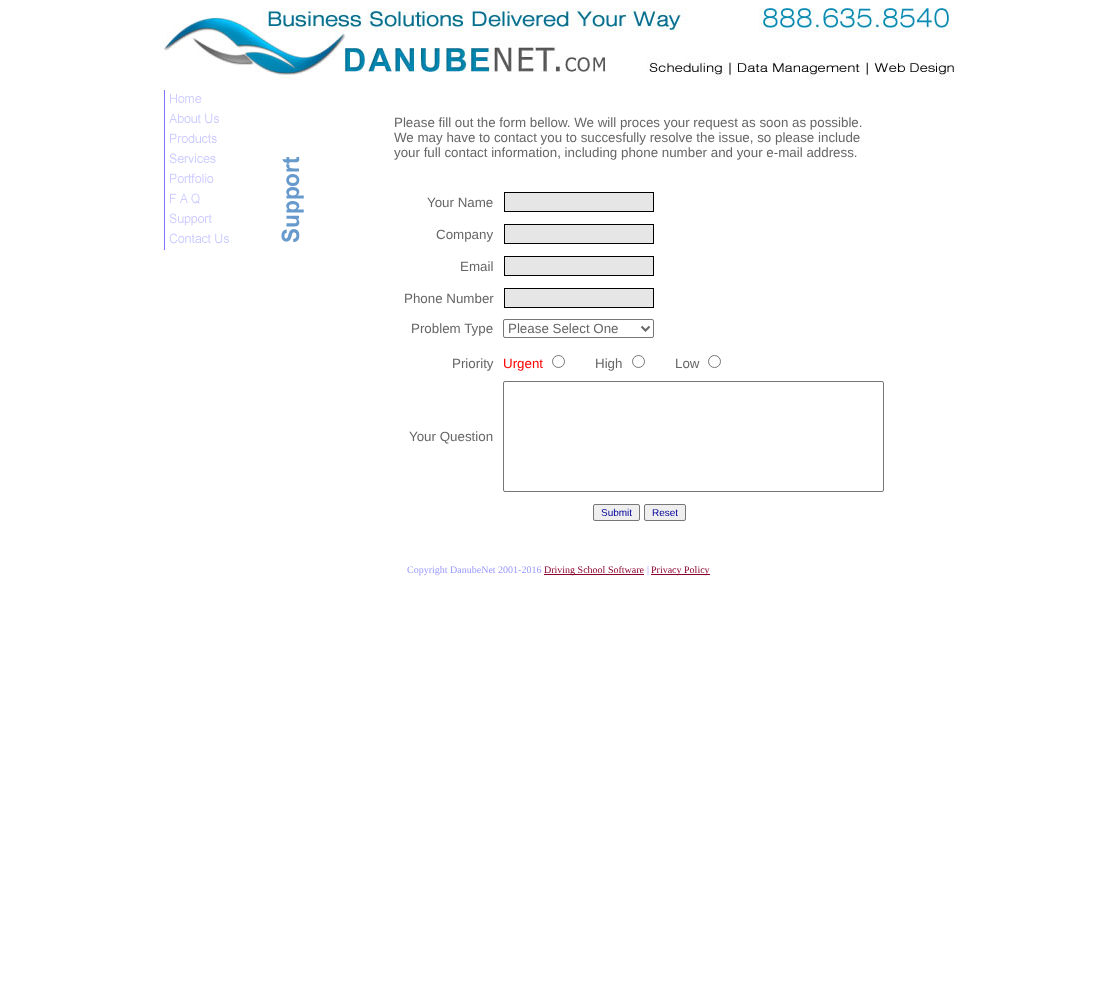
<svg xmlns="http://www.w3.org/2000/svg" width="1117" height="982">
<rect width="100%" height="100%" fill="#fff"/>
<image x="159" y="8" width="799" height="72" href="media/1.png"/>
<rect x="164" y="90" width="1" height="160" fill="#7d73fd"/>
<image x="170" y="93" width="32" height="10" href="media/2.png"/>
<image x="169" y="113" width="50" height="11" href="media/3.png"/>
<image x="170" y="133" width="47" height="10" href="media/4.png"/>
<image x="169" y="153" width="47" height="11" href="media/5.png"/>
<image x="170" y="173" width="44" height="10" href="media/6.png"/>
<image x="170" y="193" width="30" height="11" href="media/7.png"/>
<image x="169" y="213" width="43" height="13" href="media/8.png"/>
<image x="169" y="233" width="60" height="11" href="media/9.png"/>
<image x="281" y="156" width="23" height="87" href="media/10.png"/>
<text x="394" y="127" style="font-family:Liberation Sans;font-size:13.35px;fill:#666">Please fill out the form bellow. We will proces your request as soon as possible.</text>
<text x="394" y="142" style="font-family:Liberation Sans;font-size:13.35px;fill:#666">We may have to contact you to succesfully resolve the issue, so please include</text>
<text x="394" y="157" style="font-family:Liberation Sans;font-size:13.35px;fill:#666">your full contact information, including phone number and your e-mail address.</text>
<text x="427" y="207" style="font-family:Liberation Sans;font-size:13.35px;fill:#666">Your Name</text>
<rect x="504.5" y="192.5" width="149" height="19" fill="#e6e6e6" stroke="#000"/>
<text x="436" y="239" style="font-family:Liberation Sans;font-size:13.35px;fill:#666">Company</text>
<rect x="504.5" y="224.5" width="149" height="19" fill="#e6e6e6" stroke="#000"/>
<text x="460" y="271" style="font-family:Liberation Sans;font-size:13.35px;fill:#666">Email</text>
<rect x="504.5" y="256.5" width="149" height="19" fill="#e6e6e6" stroke="#000"/>
<text x="404" y="303" style="font-family:Liberation Sans;font-size:13.35px;fill:#666">Phone Number</text>
<rect x="504.5" y="288.5" width="149" height="19" fill="#e6e6e6" stroke="#000"/>
<text x="411" y="333" style="font-family:Liberation Sans;font-size:13.35px;fill:#666">Problem Type</text>
<rect x="503.5" y="319.5" width="150" height="18" rx="1.5" fill="none" stroke="#767676"/>
<path d="M641.5 326.5l4 4l4-4" fill="none" stroke="#666" stroke-width="2"/>
<text x="508" y="333" style="font-family:Liberation Sans;font-size:13.35px;fill:#666">Please Select One</text>
<text x="452" y="368" style="font-family:Liberation Sans;font-size:13.35px;fill:#666">Priority</text>
<text x="503" y="368" style="font-family:Liberation Sans;font-size:13.35px;fill:#f00">Urgent</text>
<circle cx="558.5" cy="361.5" r="6" fill="none" stroke="#767676"/>
<text x="595" y="368" style="font-family:Liberation Sans;font-size:13.35px;fill:#666">High</text>
<circle cx="638.5" cy="361.5" r="6" fill="none" stroke="#767676"/>
<text x="675" y="368" style="font-family:Liberation Sans;font-size:13.35px;fill:#666">Low</text>
<circle cx="714.5" cy="361.5" r="6" fill="none" stroke="#767676"/>
<text x="409" y="441" style="font-family:Liberation Sans;font-size:13.35px;fill:#666">Your Question</text>
<rect x="503.5" y="381.5" width="380" height="110" rx="1.5" fill="none" stroke="#767676"/>
<rect x="593.5" y="504.5" width="46" height="16" rx="1.5" fill="#efefef" stroke="#767676"/>
<text x="601" y="516" style="font-family:Liberation Sans;font-size:10px;fill:#009">Submit</text>
<rect x="644.5" y="504.5" width="41" height="16" rx="1.5" fill="#efefef" stroke="#767676"/>
<text x="652" y="516" style="font-family:Liberation Sans;font-size:10px;fill:#009">Reset</text>
<text x="407" y="573" style="font-family:Liberation Serif;font-size:10px;fill:#99f">Copyright DanubeNet 2001-2016</text>
<rect x="544" y="574" width="100" height="1" fill="#8a002d"/>
<text x="544" y="573" style="font-family:Liberation Serif;font-size:10px;fill:#8a002d">Driving School Software</text>
<text x="647" y="573" style="font-family:Liberation Serif;font-size:10px;fill:#99f">|</text>
<rect x="651" y="574" width="59" height="1" fill="#8a002d"/>
<text x="651" y="573" style="font-family:Liberation Serif;font-size:10px;fill:#8a002d">Privacy Policy</text>
</svg>
